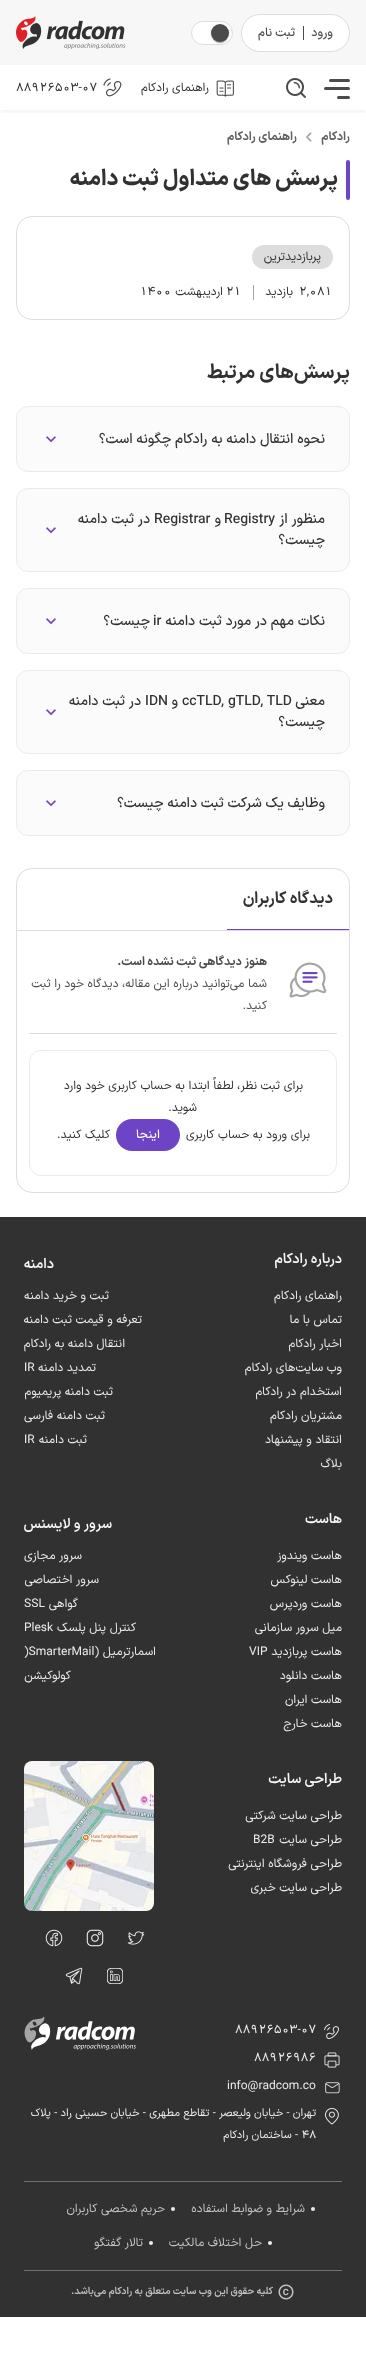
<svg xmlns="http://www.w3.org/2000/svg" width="366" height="2379">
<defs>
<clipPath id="clip1"><rect x="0" y="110" width="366" height="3"/></clipPath>
</defs>
<rect width="100%" height="100%" fill="#fff"/>
<rect width="366" height="65" fill="#f7f7f7"/>
<rect x="241.5" y="14.5" width="108" height="37" rx="18.5" fill="#fff" stroke="#ddd"/>
<text x="333" y="36" style="font-family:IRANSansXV;font-size:12px;font-weight:500;direction:rtl;fill:#4b4b4b">ورود</text>
<rect x="303" y="26" width="1" height="14" fill="#4b4b4b"/>
<text x="295" y="36" style="font-family:IRANSansXV;font-size:12px;font-weight:500;direction:rtl;fill:#4b4b4b">ثبت‌ نام</text>
<rect x="191.5" y="21.5" width="41" height="23" rx="11.5" fill="#fff" stroke="#ddd"/>
<rect x="211" y="25" width="18" height="18" rx="9" fill="#0000001f" filter="blur(1.5px)"/>
<rect x="211" y="25" width="18" height="18" rx="9" fill="#00000024" filter="blur(0.5px)"/>
<rect x="212" y="27" width="16" height="16" rx="8" fill="#00000033" filter="blur(0.5px)"/>
<circle cx="220" cy="33" r="9" fill="#4b4b4b"/>
<image x="16" y="16" width="110" height="33" href="media/1.png"/>
<g clip-path="url(#clip1)">
<rect y="67" width="366" height="45" fill="#0000000f" filter="blur(3px)"/>
</g>
<rect x="329" y="79" width="21" height="3" rx="1.5" fill="#4b4b4b"/>
<rect x="324" y="87" width="26" height="3" rx="1.5" fill="#4b4b4b"/>
<rect x="337" y="96" width="13" height="3" rx="1.5" fill="#4b4b4b"/>
<image x="286" y="78" width="20" height="20" href="media/2.png"/>
<image x="216" y="80" width="18" height="17" href="media/3.png"/>
<text x="209" y="91" style="font-family:IRANSansXV;font-size:12px;direction:rtl;fill:#313131">راهنمای رادکام</text>
<image x="103" y="78" width="19" height="19" href="media/4.png"/>
<text x="16" y="91" style="font-family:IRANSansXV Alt;font-size:12px;fill:#313131">88926503-07</text>
<text x="350" y="140" style="font-family:IRANSansXV;font-size:12px;font-weight:bold;direction:rtl;fill:#606060">رادکام</text>
<image x="306" y="132" width="6" height="10" href="media/5.png"/>
<text x="297" y="140" style="font-family:IRANSansXV;font-size:12px;font-weight:bold;direction:rtl;fill:#606060">راهنمای رادکام</text>
<rect x="346" y="160" width="4" height="40" rx="2" fill="#6e44c6"/>
<text x="338" y="185" style="font-family:IRANSansXV;font-size:22px;font-weight:800;direction:rtl;fill:#313131">پرسش های متداول ثبت دامنه</text>
<rect x="16.5" y="216.5" width="333" height="103" rx="15.5" fill="none" stroke="#ddd"/>
<rect x="252" y="245" width="81" height="24" rx="12" fill="#ddd"/>
<text x="321" y="260" style="font-family:IRANSansXV;font-size:12px;direction:rtl;fill:#313131">پربازدیدترین</text>
<text x="299" y="295" style="font-family:IRANSansXV Alt;font-size:12px;fill:#313131">2,081</text>
<text x="293" y="295" style="font-family:IRANSansXV;font-size:12px;direction:rtl;fill:#313131">بازدید</text>
<rect x="253" y="285" width="1" height="15" fill="#a5a5a5"/>
<text x="226" y="295" style="font-family:IRANSansXV Alt;font-size:12px;fill:#313131">21</text>
<text x="223" y="295" style="font-family:IRANSansXV;font-size:12px;direction:rtl;fill:#313131">اردیبهشت</text>
<text x="140" y="295" style="font-family:IRANSansXV Alt;font-size:12px;fill:#313131">1400</text>
<text x="350" y="378" style="font-family:IRANSansXV;font-size:20px;font-weight:bold;direction:rtl;fill:#313131">پرسش‌های مرتبط</text>
<rect x="16.5" y="406.5" width="333" height="65" rx="11.5" fill="#fbfbfb" stroke="#ebebeb"/>
<text x="325" y="443" style="font-family:IRANSansXV;font-size:14px;font-weight:500;direction:rtl;fill:#313131">نحوه انتقال دامنه به رادکام چگونه است؟</text>
<image x="46" y="436" width="10" height="7" href="media/6.png"/>
<rect x="16.5" y="488.5" width="333" height="83" rx="11.5" fill="#fbfbfb" stroke="#ebebeb"/>
<text x="325" y="523" style="font-family:IRANSansXV;font-size:14px;font-weight:500;direction:rtl;fill:#313131">منظور از</text>
<text x="224" y="523" style="font-family:IRANSansXV;font-size:14px;font-weight:500;fill:#313131">Registry</text>
<text x="221" y="523" style="font-family:IRANSansXV;font-size:14px;font-weight:500;direction:rtl;fill:#313131">و</text>
<text x="154" y="523" style="font-family:IRANSansXV;font-size:14px;font-weight:500;fill:#313131">Registrar</text>
<text x="150" y="523" style="font-family:IRANSansXV;font-size:14px;font-weight:500;direction:rtl;fill:#313131">در ثبت دامنه</text>
<text x="325" y="544" style="font-family:IRANSansXV;font-size:14px;font-weight:500;direction:rtl;fill:#313131">چیست؟</text>
<image x="46" y="527" width="10" height="7" href="media/6.png"/>
<rect x="16.5" y="588.5" width="333" height="65" rx="11.5" fill="#fbfbfb" stroke="#ebebeb"/>
<text x="325" y="625" style="font-family:IRANSansXV;font-size:14px;font-weight:500;direction:rtl;fill:#313131">نکات مهم در مورد ثبت دامنه</text>
<text x="153" y="625" style="font-family:IRANSansXV;font-size:14px;font-weight:500;fill:#313131">ir</text>
<text x="150" y="625" style="font-family:IRANSansXV;font-size:14px;font-weight:500;direction:rtl;fill:#313131">چیست؟</text>
<image x="46" y="618" width="10" height="7" href="media/6.png"/>
<rect x="16.5" y="670.5" width="333" height="83" rx="11.5" fill="#fbfbfb" stroke="#ebebeb"/>
<text x="325" y="705" style="font-family:IRANSansXV;font-size:14px;font-weight:500;direction:rtl;fill:#313131">معنی</text>
<text x="182" y="705" style="font-family:IRANSansXV;font-size:14px;font-weight:500;fill:#313131">ccTLD, gTLD, TLD</text>
<text x="178" y="705" style="font-family:IRANSansXV;font-size:14px;font-weight:500;direction:rtl;fill:#313131">و</text>
<text x="145" y="705" style="font-family:IRANSansXV;font-size:14px;font-weight:500;fill:#313131">IDN</text>
<text x="141" y="705" style="font-family:IRANSansXV;font-size:14px;font-weight:500;direction:rtl;fill:#313131">در ثبت دامنه</text>
<text x="325" y="726" style="font-family:IRANSansXV;font-size:14px;font-weight:500;direction:rtl;fill:#313131">چیست؟</text>
<image x="46" y="709" width="10" height="7" href="media/6.png"/>
<rect x="16.5" y="770.5" width="333" height="65" rx="11.5" fill="#fbfbfb" stroke="#ebebeb"/>
<text x="325" y="807" style="font-family:IRANSansXV;font-size:14px;font-weight:500;direction:rtl;fill:#313131">وظایف یک شرکت ثبت دامنه چیست؟</text>
<image x="46" y="800" width="10" height="7" href="media/6.png"/>
<rect x="16.5" y="868.5" width="333" height="324" rx="15.5" fill="none" stroke="#ddd"/>
<rect x="17" y="930" width="332" height="1" fill="#ddd"/>
<rect x="227" y="929" width="122" height="1" fill="#6e44c6"/>
<text x="333" y="903" style="font-family:IRANSansXV;font-size:16px;font-weight:bold;direction:rtl;fill:#313131">دیدگاه کاربران</text>
<rect x="29" y="1033" width="308" height="1" fill="#ddd"/>
<image x="289" y="962" width="38" height="36" href="media/7.png"/>
<text x="267" y="965" style="font-family:IRANSansXV;font-size:12px;font-weight:bold;direction:rtl;fill:#4b4b4b">هنوز دیدگاهی ثبت نشده است.</text>
<text x="267" y="987" style="font-family:IRANSansXV;font-size:12px;direction:rtl;fill:#4b4b4b">شما می‌توانید درباره این مقاله، دیدگاه خود را ثبت</text>
<text x="267" y="1009" style="font-family:IRANSansXV;font-size:12px;direction:rtl;fill:#4b4b4b">کنید.</text>
<rect x="29.5" y="1050.5" width="307" height="125" rx="11.5" fill="none" stroke="#ebebeb"/>
<text x="303" y="1089" style="font-family:IRANSansXV;font-size:12px;direction:rtl;fill:#313131">برای ثبت نظر، لطفاً ابتدا به حساب کاربری خود وارد</text>
<text x="197" y="1111" style="font-family:IRANSansXV;font-size:12px;direction:rtl;fill:#313131">شوید.</text>
<text x="310" y="1138" style="font-family:IRANSansXV;font-size:12px;direction:rtl;fill:#313131">برای ورود به حساب کاربری</text>
<rect x="116" y="1119" width="64" height="32" rx="16" fill="#6e44c6"/>
<text x="160" y="1138" style="font-family:IRANSansXV;font-size:12px;font-weight:500;direction:rtl;fill:#fff">اینجا</text>
<text x="110" y="1138" style="font-family:IRANSansXV;font-size:12px;direction:rtl;fill:#313131">کلیک کنید.</text>
<rect y="1217" width="366" height="1100" fill="#313131"/>
<text x="342" y="1263" style="font-family:IRANSansXV;font-size:14px;font-weight:600;direction:rtl;fill:#f7f7f7">درباره رادکام</text>
<text x="342" y="1299" style="font-family:IRANSansXV;font-size:12px;direction:rtl;fill:#ebebeb">راهنمای رادکام</text>
<text x="342" y="1323" style="font-family:IRANSansXV;font-size:12px;direction:rtl;fill:#ebebeb">تماس با ما</text>
<text x="342" y="1347" style="font-family:IRANSansXV;font-size:12px;direction:rtl;fill:#ebebeb">اخبار رادکام</text>
<text x="342" y="1371" style="font-family:IRANSansXV;font-size:12px;direction:rtl;fill:#ebebeb">وب سایت‌های رادکام</text>
<text x="342" y="1395" style="font-family:IRANSansXV;font-size:12px;direction:rtl;fill:#ebebeb">استخدام در رادکام</text>
<text x="342" y="1419" style="font-family:IRANSansXV;font-size:12px;direction:rtl;fill:#ebebeb">مشتریان رادکام</text>
<text x="342" y="1443" style="font-family:IRANSansXV;font-size:12px;direction:rtl;fill:#ebebeb">انتقاد و پیشنهاد</text>
<text x="342" y="1467" style="font-family:IRANSansXV;font-size:12px;direction:rtl;fill:#ebebeb">بلاگ</text>
<text x="54" y="1268" style="font-family:IRANSansXV;font-size:14px;font-weight:600;direction:rtl;fill:#f7f7f7">دامنه</text>
<text x="109" y="1299" style="font-family:IRANSansXV;font-size:12px;direction:rtl;fill:#ebebeb">ثبت و خرید دامنه</text>
<text x="142" y="1323" style="font-family:IRANSansXV;font-size:12px;direction:rtl;fill:#ebebeb">تعرفه و قیمت ثبت دامنه</text>
<text x="125" y="1347" style="font-family:IRANSansXV;font-size:12px;direction:rtl;fill:#ebebeb">انتقال دامنه به رادکام</text>
<text x="96" y="1371" style="font-family:IRANSansXV;font-size:12px;direction:rtl;fill:#ebebeb">تمدید دامنه</text>
<text x="24" y="1371" style="font-family:IRANSansXV;font-size:12px;fill:#ebebeb">IR</text>
<text x="113" y="1395" style="font-family:IRANSansXV;font-size:12px;direction:rtl;fill:#ebebeb">ثبت دامنه پریمیوم</text>
<text x="105" y="1419" style="font-family:IRANSansXV;font-size:12px;direction:rtl;fill:#ebebeb">ثبت دامنه فارسی</text>
<text x="87" y="1443" style="font-family:IRANSansXV;font-size:12px;direction:rtl;fill:#ebebeb">ثبت دامنه</text>
<text x="24" y="1443" style="font-family:IRANSansXV;font-size:12px;fill:#ebebeb">IR</text>
<text x="342" y="1523" style="font-family:IRANSansXV;font-size:14px;font-weight:600;direction:rtl;fill:#f7f7f7">هاست</text>
<text x="342" y="1559" style="font-family:IRANSansXV;font-size:12px;direction:rtl;fill:#ebebeb">هاست ویندوز</text>
<text x="342" y="1583" style="font-family:IRANSansXV;font-size:12px;direction:rtl;fill:#ebebeb">هاست لینوکس</text>
<text x="342" y="1607" style="font-family:IRANSansXV;font-size:12px;direction:rtl;fill:#ebebeb">هاست وردپرس</text>
<text x="342" y="1631" style="font-family:IRANSansXV;font-size:12px;direction:rtl;fill:#ebebeb">میل سرور سازمانی</text>
<text x="342" y="1655" style="font-family:IRANSansXV;font-size:12px;direction:rtl;fill:#ebebeb">هاست پربازدید</text>
<text x="249" y="1655" style="font-family:IRANSansXV;font-size:12px;fill:#ebebeb">VIP</text>
<text x="342" y="1679" style="font-family:IRANSansXV;font-size:12px;direction:rtl;fill:#ebebeb">هاست دانلود</text>
<text x="342" y="1703" style="font-family:IRANSansXV;font-size:12px;direction:rtl;fill:#ebebeb">هاست ایران</text>
<text x="342" y="1727" style="font-family:IRANSansXV;font-size:12px;direction:rtl;fill:#ebebeb">هاست خارج</text>
<text x="112" y="1528" style="font-family:IRANSansXV;font-size:14px;font-weight:600;direction:rtl;fill:#f7f7f7">سرور و لایسنس</text>
<text x="82" y="1559" style="font-family:IRANSansXV;font-size:12px;direction:rtl;fill:#ebebeb">سرور مجازی</text>
<text x="99" y="1583" style="font-family:IRANSansXV;font-size:12px;direction:rtl;fill:#ebebeb">سرور اختصاصی</text>
<text x="78" y="1607" style="font-family:IRANSansXV;font-size:12px;direction:rtl;fill:#ebebeb">گواهی</text>
<text x="24" y="1607" style="font-family:IRANSansXV;font-size:12px;fill:#ebebeb">SSL</text>
<text x="136" y="1631" style="font-family:IRANSansXV;font-size:12px;direction:rtl;fill:#ebebeb">کنترل پنل پلسک</text>
<text x="24" y="1631" style="font-family:IRANSansXV;font-size:12px;fill:#ebebeb">Plesk</text>
<text x="156" y="1655" style="font-family:IRANSansXV;font-size:12px;direction:rtl;fill:#ebebeb">اسمارترمیل (</text>
<text x="24" y="1655" style="font-family:IRANSansXV;font-size:12px;fill:#ebebeb">)SmarterMail</text>
<text x="71" y="1679" style="font-family:IRANSansXV;font-size:12px;direction:rtl;fill:#ebebeb">کولوکیشن</text>
<text x="342" y="1783" style="font-family:IRANSansXV;font-size:14px;font-weight:600;direction:rtl;fill:#f7f7f7">طراحی سایت</text>
<text x="342" y="1819" style="font-family:IRANSansXV;font-size:12px;direction:rtl;fill:#ebebeb">طراحی سایت شرکتی</text>
<text x="342" y="1843" style="font-family:IRANSansXV;font-size:12px;direction:rtl;fill:#ebebeb">طراحی سایت</text>
<text x="253" y="1843" style="font-family:IRANSansXV;font-size:12px;fill:#ebebeb">B2B</text>
<text x="342" y="1867" style="font-family:IRANSansXV;font-size:12px;direction:rtl;fill:#ebebeb">طراحی فروشگاه اینترنتی</text>
<text x="342" y="1891" style="font-family:IRANSansXV;font-size:12px;direction:rtl;fill:#ebebeb">طراحی سایت خبری</text>
<image x="24" y="1761" width="130" height="150" href="media/8.png"/>
<image x="127" y="1931" width="18" height="14" href="media/9.png"/>
<image x="86" y="1929" width="18" height="18" href="media/10.png"/>
<image x="45" y="1929" width="18" height="18" href="media/11.png"/>
<image x="107" y="1968" width="16" height="16" href="media/12.png"/>
<image x="65" y="1967" width="18" height="18" href="media/13.png"/>
<image x="24" y="2016" width="112" height="34" href="media/14.png"/>
<image x="324" y="2024" width="15" height="15" href="media/15.png"/>
<text x="235" y="2033" style="font-family:IRANSansXV Alt;font-size:12px;fill:#ebebeb">88926503-07</text>
<image x="324" y="2052" width="16" height="16" href="media/16.png"/>
<text x="254" y="2061" style="font-family:IRANSansXV Alt;font-size:12px;fill:#ebebeb">88926986</text>
<image x="325" y="2082" width="15" height="12" href="media/17.png"/>
<text x="227" y="2089" style="font-family:IRANSansXV;font-size:12px;fill:#ebebeb">info@radcom.co</text>
<image x="325" y="2108" width="14" height="17" href="media/18.png"/>
<text x="316" y="2116" style="font-family:IRANSansXV;font-size:11px;direction:rtl;fill:#ebebeb">تهران - خیابان ولیعصر - تقاطع مطهری - خیابان حسینی راد - پلاک</text>
<text x="302" y="2138" style="font-family:IRANSansXV Alt;font-size:11px;fill:#ebebeb">48</text>
<text x="298" y="2138" style="font-family:IRANSansXV;font-size:11px;direction:rtl;fill:#ebebeb">- ساختمان رادکام</text>
<rect x="24" y="2181" width="318" height="1" fill="#717171"/>
<circle cx="313" cy="2209" r="2" fill="#ebebeb"/>
<text x="305" y="2212" style="font-family:IRANSansXV;font-size:12px;direction:rtl;fill:#c2c2c2">شرایط و ضوابط استفاده</text>
<circle cx="173" cy="2209" r="2" fill="#ebebeb"/>
<text x="165" y="2212" style="font-family:IRANSansXV;font-size:12px;direction:rtl;fill:#c2c2c2">حریم شخصی کاربران</text>
<circle cx="270" cy="2243" r="2" fill="#ebebeb"/>
<text x="262" y="2246" style="font-family:IRANSansXV;font-size:12px;direction:rtl;fill:#c2c2c2">حل اختلاف مالکیت</text>
<circle cx="151" cy="2243" r="2" fill="#ebebeb"/>
<text x="143" y="2246" style="font-family:IRANSansXV;font-size:12px;direction:rtl;fill:#c2c2c2">تالار گفتگو</text>
<rect x="24" y="2270" width="318" height="1" fill="#717171"/>
<image x="278" y="2284" width="16" height="16" href="media/19.png"/>
<text x="273" y="2294" style="font-family:IRANSansXV;font-size:10px;font-weight:600;direction:rtl;fill:#c2c2c2">کلیه حقوق این وب سایت متعلق به رادکام می‌باشد.</text>
</svg>
